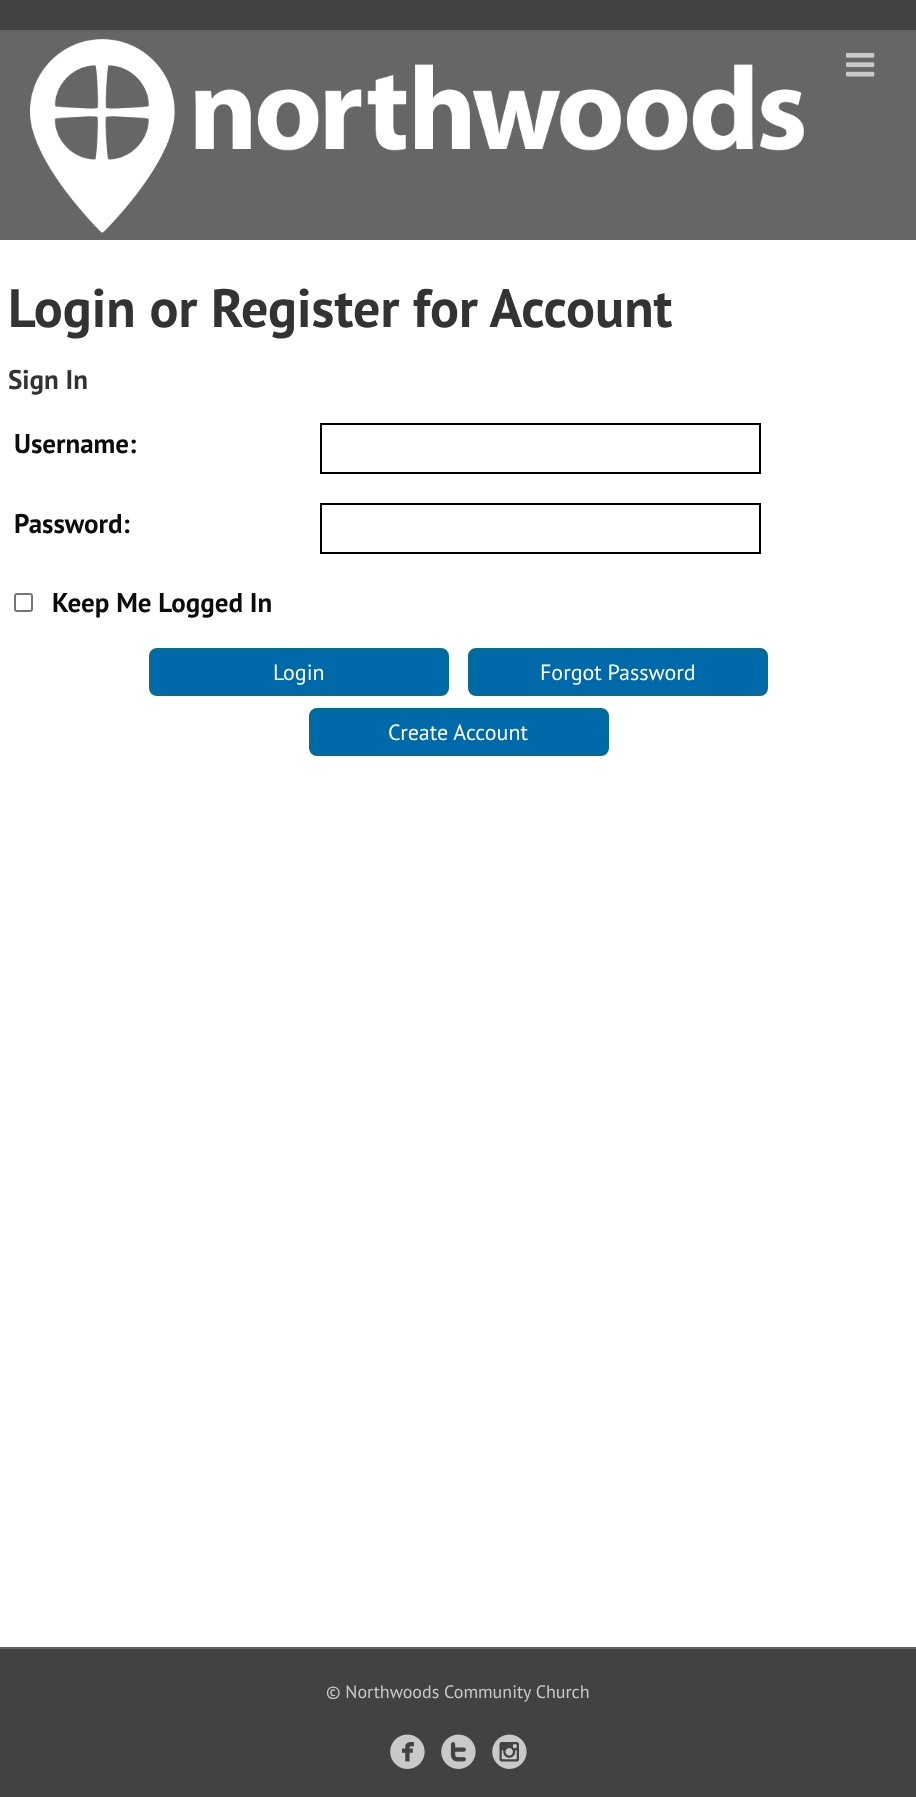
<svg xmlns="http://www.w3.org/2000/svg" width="916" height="1797">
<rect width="100%" height="100%" fill="#fff"/>
<rect width="916" height="30" fill="#424242"/>
<rect y="30" width="916" height="2" fill="#636363"/>
<rect y="32" width="916" height="208" fill="#666"/>
<image x="30" y="39" width="774" height="194" href="media/1.png"/>
<image x="846" y="52" width="29" height="25" href="media/2.png"/>
<text x="8" y="327" style="font-family:PT Sans;font-size:54px;font-weight:bold;fill:#333">Login or Register for Account</text>
<text x="8" y="389" style="font-family:PT Sans;font-size:27px;font-weight:bold;fill:#333">Sign In</text>
<text x="14" y="453" style="font-family:PT Sans;font-size:27px;font-weight:bold;fill:#0c0c0c">Username:</text>
<rect x="321" y="424" width="439" height="49" fill="none" stroke="#000" stroke-width="2"/>
<text x="14" y="533" style="font-family:PT Sans;font-size:27px;font-weight:bold;fill:#0c0c0c">Password:</text>
<rect x="321" y="504" width="439" height="49" fill="none" stroke="#000" stroke-width="2"/>
<rect x="15" y="594" width="17" height="17" rx="2" fill="none" stroke="#767676" stroke-width="2"/>
<text x="52" y="612" style="font-family:PT Sans;font-size:27px;font-weight:bold;fill:#0c0c0c">Keep Me Logged In</text>
<rect x="150.5" y="649.5" width="297" height="45" rx="6.5" fill="#0069aa" stroke="#046c93" stroke-width="3"/>
<text x="273" y="680" style="font-family:PT Sans;font-size:22px;fill:#fff">Login</text>
<rect x="469.5" y="649.5" width="297" height="45" rx="6.5" fill="#0069aa" stroke="#046c93" stroke-width="3"/>
<text x="540" y="680" style="font-family:PT Sans;font-size:22px;fill:#fff">Forgot Password</text>
<rect x="310.5" y="709.5" width="297" height="45" rx="6.5" fill="#0069aa" stroke="#046c93" stroke-width="3"/>
<text x="388" y="740" style="font-family:PT Sans;font-size:22px;fill:#fff">Create Account</text>
<rect y="1649" width="916" height="148" fill="#424242"/>
<rect y="1647" width="916" height="2" fill="#636363"/>
<text x="326" y="1698" style="font-family:PT Sans;font-size:18px;fill:#c9c9c9">© Northwoods Community Church</text>
<image x="390" y="1734" width="35" height="35" href="media/3.png"/>
<image x="441" y="1734" width="35" height="35" href="media/4.png"/>
<image x="492" y="1734" width="35" height="35" href="media/5.png"/>
</svg>
